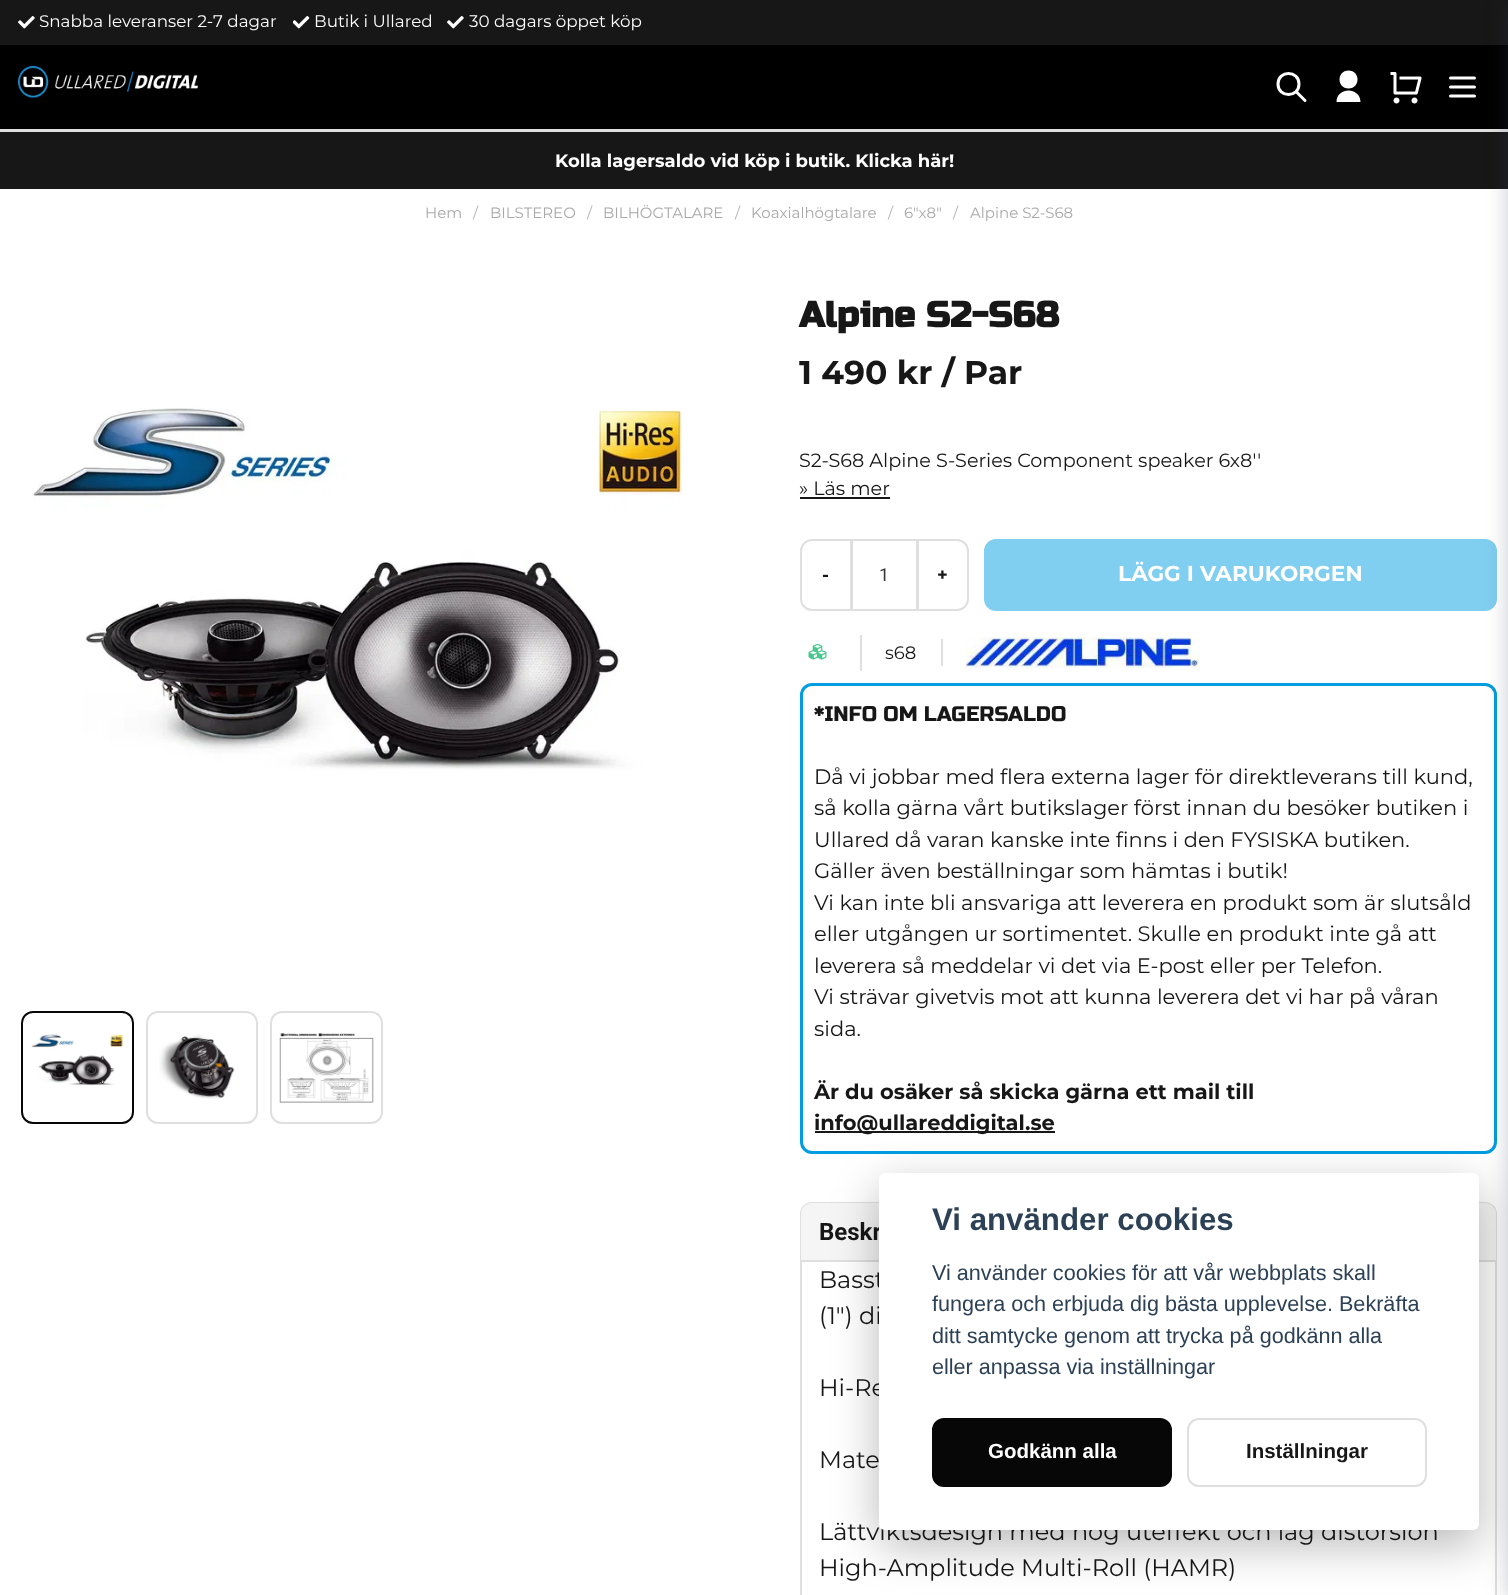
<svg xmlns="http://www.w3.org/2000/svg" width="1508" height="1595">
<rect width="100%" height="100%" fill="#fff"/>
<rect y="45" width="1508" height="84" fill="#000"/>
<rect y="129" width="1508" height="3" fill="#dfdfdf"/>
<rect width="1508" height="45" fill="#171717"/>
<image x="18" y="16" width="17" height="13" href="media/1.png"/>
<text x="39" y="27" style="font-family:Montserrat;font-size:16.75px;fill:#fff">Snabba leveranser 2-7 dagar</text>
<image x="293" y="16" width="17" height="13" href="media/2.png"/>
<text x="314" y="27" style="font-family:Montserrat;font-size:16.75px;fill:#fff">Butik i Ullared</text>
<image x="447" y="16" width="17" height="13" href="media/1.png"/>
<text x="469" y="27" style="font-family:Montserrat;font-size:16.75px;fill:#fff">30 dagars öppet köp</text>
<image x="18" y="66" width="180" height="32" href="media/3.png"/>
<path d="M1305 100.5l-9-9m3-7.5c0 14-21 14-21 0c0-14 21-14 21 0z" fill="none" stroke="#fff" stroke-width="3" stroke-linecap="round" stroke-linejoin="round"/>
<path d="M1336.5 102c0-15.5 24-15.5 24 0zm12-13.5c-12 0-12-18 0-18c12 0 12 18 0 18z" fill="#fff"/>
<image x="1390" y="72" width="32" height="32" href="media/4.png"/>
<path d="M1450.5 78h24m-24 9h24m-24 9h24" fill="none" stroke="#fff" stroke-width="3" stroke-linecap="round" stroke-linejoin="round"/>
<rect y="132" width="1508" height="57" fill="#171717"/>
<rect x="985" y="540" width="511" height="70" rx="11" fill="#80cef0" stroke="#80cef0" stroke-width="2"/>
<rect x="801.5" y="684.5" width="694" height="468" rx="10.5" fill="none" stroke="#019de0" stroke-width="3"/>
<rect x="801" y="1203" width="695" height="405" rx="11" fill="none" stroke="#dfdfdf" stroke-width="2"/>
<path d="M812 1203h673c6 0 11 5 11 11v48h-695v-48c0-6 5-11 11-11z" fill="#f5f5f5"/>
<rect x="801" y="1260" width="695" height="2" fill="#dfdfdf"/>
<rect x="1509" y="2" width="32" height="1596" fill="#3c42574d" filter="blur(11px)"/>
<text x="555" y="167" style="font-family:Montserrat;font-size:18px;font-weight:bold;fill:#fff">Kolla lagersaldo vid köp i butik. Klicka här!</text>
<text x="425" y="218" style="font-family:Montserrat;font-size:15px;fill:#a9a9a9">Hem</text>
<text x="473" y="218" style="font-family:Montserrat;font-size:15px;fill:#b5b5b5">/</text>
<text x="490" y="218" style="font-family:Montserrat;font-size:15px;fill:#a9a9a9">BILSTEREO</text>
<text x="587" y="218" style="font-family:Montserrat;font-size:15px;fill:#b5b5b5">/</text>
<text x="603" y="218" style="font-family:Montserrat;font-size:15px;fill:#a9a9a9">BILHÖGTALARE</text>
<text x="735" y="218" style="font-family:Montserrat;font-size:15px;fill:#b5b5b5">/</text>
<text x="751" y="218" style="font-family:Montserrat;font-size:15px;fill:#a9a9a9">Koaxialhögtalare</text>
<text x="888" y="218" style="font-family:Montserrat;font-size:15px;fill:#b5b5b5">/</text>
<text x="904" y="218" style="font-family:Montserrat;font-size:15px;fill:#a9a9a9">6"x8"</text>
<text x="953" y="218" style="font-family:Montserrat;font-size:15px;fill:#b5b5b5">/</text>
<text x="970" y="218" style="font-family:Montserrat;font-size:15px;fill:#a9a9a9">Alpine S2-S68</text>
<image x="33" y="407" width="649" height="364" href="media/5.png"/>
<rect x="22" y="1012" width="111" height="111" rx="11" fill="none" stroke="#070707" stroke-width="2"/>
<image x="31" y="1034" width="92" height="52" href="media/6.png"/>
<rect x="147" y="1012" width="110" height="111" rx="11" fill="none" stroke="#dfdfdf" stroke-width="2"/>
<image x="159" y="1034" width="76" height="65" href="media/7.png"/>
<rect x="271" y="1012" width="111" height="111" rx="11" fill="none" stroke="#dfdfdf" stroke-width="2"/>
<image x="279" y="1033" width="95" height="70" href="media/8.png"/>
<text x="799" y="327" style="font-family:Russo One;font-size:36px;font-weight:bold;fill:#171717">Alpine S2-S68</text>
<text x="799" y="384" style="font-family:Montserrat;font-size:33px;font-weight:bold;fill:#171717">1 490 kr / Par</text>
<text x="799" y="467" style="font-family:Montserrat;font-size:19.2px;fill:#171717">S2-S68 Alpine S-Series Component speaker 6x8''</text>
<text x="799" y="495" style="font-family:Montserrat;font-size:19.2px;fill:#171717">» Läs mer</text>
<rect x="800" y="497" width="90" height="2" fill="#171717"/>
<path d="M812 540h39v70h-39c-6 0-11-5-11-11v-48c0-6 5-11 11-11z" fill="none" stroke="#dfdfdf" stroke-width="2"/>
<text x="822" y="581" style="font-family:Montserrat;font-size:18px;font-weight:bold;fill:#171717">-</text>
<rect x="852" y="540" width="65" height="70" fill="none" stroke="#dfdfdf" stroke-width="2"/>
<text x="879" y="581" style="font-family:Roboto;font-size:18px;fill:#363636">1</text>
<path d="M918 540h39c6 0 11 5 11 11v48c0 6-5 11-11 11h-39z" fill="#fff" stroke="#dfdfdf" stroke-width="2"/>
<text x="937" y="581" style="font-family:Montserrat;font-size:18px;font-weight:bold;fill:#171717">+</text>
<text x="1118" y="581" style="font-family:Montserrat;font-size:21.6px;font-weight:bold;fill:#fff">LÄGG I VARUKORGEN</text>
<rect x="860" y="635" width="2" height="36" fill="#dfdfdf"/>
<image x="808" y="643" width="19" height="17" href="media/9.png"/>
<rect x="941" y="639" width="2" height="27" fill="#dfdfdf"/>
<text x="885" y="659" style="font-family:Montserrat;font-size:18px;fill:#171717">s68</text>
<image x="966" y="637" width="234" height="31" href="media/10.png"/>
<text x="814" y="721" style="font-family:Russo One;font-size:21px;fill:#171717">*INFO OM LAGERSALDO</text>
<text x="814" y="784" style="font-family:Montserrat;font-size:21px;fill:#171717">Då vi jobbar med flera externa lager för direktleverans till kund,</text>
<text x="814" y="815" style="font-family:Montserrat;font-size:21px;fill:#171717">så kolla gärna vårt butikslager först innan du besöker butiken i</text>
<text x="814" y="847" style="font-family:Montserrat;font-size:21px;fill:#171717">Ullared då varan kanske inte finns i den FYSISKA butiken.</text>
<text x="814" y="878" style="font-family:Montserrat;font-size:21px;fill:#171717">Gäller även beställningar som hämtas i butik!</text>
<text x="814" y="910" style="font-family:Montserrat;font-size:21px;fill:#171717">Vi kan inte bli ansvariga att leverera en produkt som är slutsåld</text>
<text x="814" y="941" style="font-family:Montserrat;font-size:21px;fill:#171717">eller utgången ur sortimentet. Skulle en produkt inte gå att</text>
<text x="814" y="973" style="font-family:Montserrat;font-size:21px;fill:#171717">leverera så meddelar vi det via E-post eller per Telefon.</text>
<text x="814" y="1004" style="font-family:Montserrat;font-size:21px;fill:#171717">Vi strävar givetvis mot att kunna leverera det vi har på våran</text>
<text x="814" y="1036" style="font-family:Montserrat;font-size:21px;fill:#171717">sida.</text>
<text x="814" y="1099" style="font-family:Montserrat;font-size:21px;font-weight:bold;fill:#171717">Är du osäker så skicka gärna ett mail till</text>
<rect x="815" y="1131" width="240" height="2" fill="#171717"/>
<text x="814" y="1130" style="font-family:Montserrat;font-size:21px;font-weight:bold;fill:#171717">info@ullareddigital.se</text>
<text x="819" y="1240" style="font-family:Roboto;font-size:24px;font-weight:bold;fill:#171717">Beskr</text>
<text x="819" y="1288" style="font-family:Montserrat;font-size:24px;fill:#171717">Basst</text>
<text x="819" y="1324" style="font-family:Montserrat;font-size:24px;fill:#171717">(1") di</text>
<text x="819" y="1396" style="font-family:Montserrat;font-size:24px;fill:#171717">Hi-Re</text>
<text x="819" y="1468" style="font-family:Montserrat;font-size:24px;fill:#171717">Mate</text>
<text x="819" y="1540" style="font-family:Montserrat;font-size:24px;fill:#171717">Lättviktsdesign med hög uteffekt och låg distorsion</text>
<text x="819" y="1576" style="font-family:Montserrat;font-size:24px;fill:#171717">High-Amplitude Multi-Roll (HAMR)</text>
<rect x="879" y="1188" width="600" height="357" rx="6" fill="#02020347" filter="blur(22.5px)"/>
<rect x="879" y="1173" width="600" height="357" rx="6" fill="#fff"/>
<text x="932" y="1230" style="font-family:Liberation Sans;font-size:31.25px;font-weight:bold;fill:#2d4156">Vi använder cookies</text>
<text x="932" y="1280" style="font-family:Liberation Sans;font-size:21.6px;fill:#2d4156">Vi använder cookies för att vår webbplats skall</text>
<text x="932" y="1311" style="font-family:Liberation Sans;font-size:21.6px;fill:#2d4156">fungera och erbjuda dig bästa upplevelse. Bekräfta</text>
<text x="932" y="1343" style="font-family:Liberation Sans;font-size:21.6px;fill:#2d4156">ditt samtycke genom att trycka på godkänn alla</text>
<text x="932" y="1374" style="font-family:Liberation Sans;font-size:21.6px;fill:#2d4156">eller anpassa via inställningar</text>
<rect x="933" y="1419" width="238" height="67" rx="11" fill="#070707" stroke="#070707" stroke-width="2"/>
<text x="988" y="1458" style="font-family:Liberation Sans;font-size:20.5px;font-weight:bold;fill:#fff">Godkänn alla</text>
<rect x="1188" y="1419" width="238" height="67" rx="11" fill="none" stroke="#dfdfdf" stroke-width="2"/>
<text x="1246" y="1458" style="font-family:Liberation Sans;font-size:20.5px;font-weight:bold;fill:#171717">Inställningar</text>
</svg>
